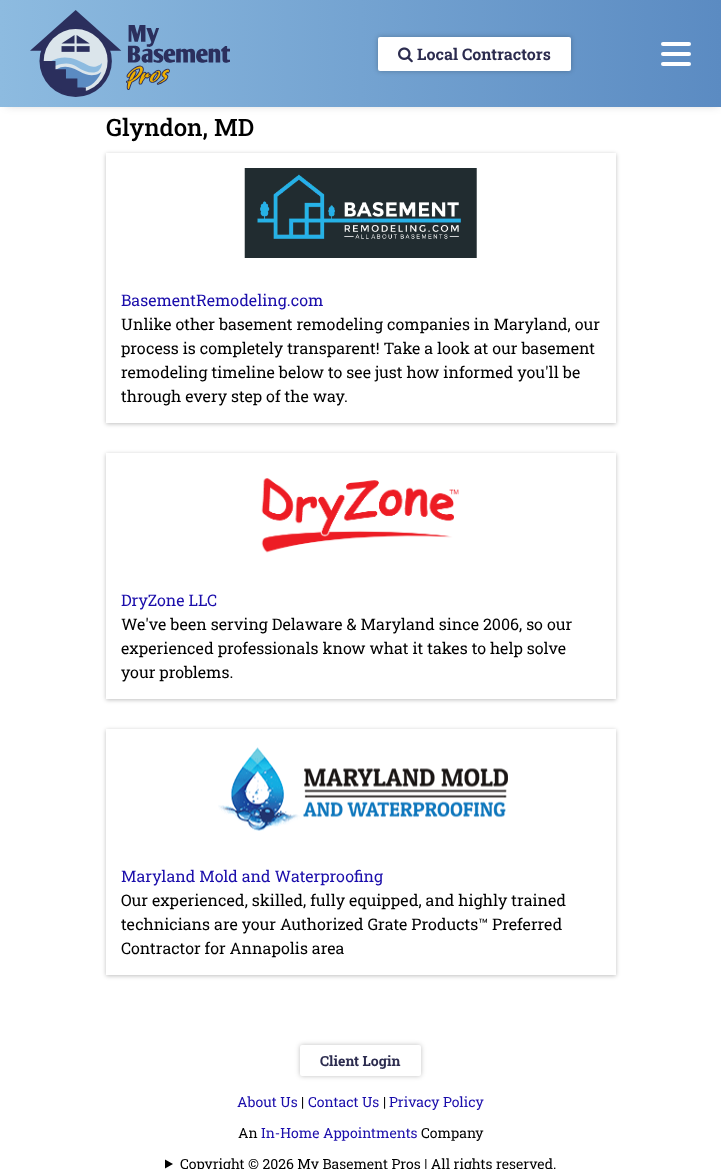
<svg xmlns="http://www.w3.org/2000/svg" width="721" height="1169">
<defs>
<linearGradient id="g1" gradientUnits="userSpaceOnUse" x1="0" y1="54" x2="721" y2="53"><stop offset="0" stop-color="#8dbbe0"/><stop offset="1" stop-color="#5b8bc2"/></linearGradient>
<clipPath id="clip1"><path d="M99 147h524v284h-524zm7 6h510v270h-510z" clip-rule="evenodd"/></clipPath>
<clipPath id="clip2"><path d="M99 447h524v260h-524zm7 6h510v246h-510z" clip-rule="evenodd"/></clipPath>
<clipPath id="clip3"><path d="M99 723h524v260h-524zm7 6h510v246h-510z" clip-rule="evenodd"/></clipPath>
</defs>
<rect width="100%" height="100%" fill="#fff"/>
<rect x="6" y="6" width="713" height="99" fill="#00000033" filter="blur(5px)"/>
<rect width="721" height="107" fill="url(#g1)"/>
<image x="30" y="10" width="200" height="87" href="media/1.png"/>
<rect x="378" y="37" width="193" height="34" rx="2" fill="#00000040" filter="blur(2.5px)"/>
<rect x="378" y="37" width="193" height="34" rx="2" fill="#fff"/>
<image x="398" y="47" width="15" height="16" href="media/2.png"/>
<text x="417" y="60" style="font-family:Roboto Slab;font-size:16px;font-weight:bold;fill:#2c2c4f">Local Contractors</text>
<rect x="661" y="42" width="30" height="4" rx="2" fill="#fff"/>
<rect x="661" y="52" width="30" height="4" rx="2" fill="#fff"/>
<rect x="661" y="62" width="30" height="4" rx="2" fill="#fff"/>
<text x="106" y="136" style="font-family:Roboto Slab;font-size:24px;font-weight:500;fill:#000">Glyndon, MD</text>
<g clip-path="url(#clip1)">
<rect x="106" y="154" width="510" height="270" fill="#00000040" filter="blur(2px)"/>
</g>
<image x="244" y="168" width="233" height="90" href="media/3.png"/>
<text x="121" y="306" style="font-family:Roboto Slab;font-size:16px;fill:#1a0dab">BasementRemodeling.com</text>
<text x="121" y="330" style="font-family:Roboto Slab;font-size:16px;fill:#000">Unlike other basement remodeling companies in Maryland, our</text>
<text x="121" y="354" style="font-family:Roboto Slab;font-size:16px;fill:#000">process is completely transparent! Take a look at our basement</text>
<text x="121" y="378" style="font-family:Roboto Slab;font-size:16px;fill:#000">remodeling timeline below to see just how informed you'll be</text>
<text x="121" y="402" style="font-family:Roboto Slab;font-size:16px;fill:#000">through every step of the way.</text>
<g clip-path="url(#clip2)">
<rect x="106" y="454" width="510" height="246" fill="#00000040" filter="blur(2px)"/>
</g>
<image x="261" y="478" width="198" height="75" href="media/4.png"/>
<text x="121" y="606" style="font-family:Roboto Slab;font-size:16px;fill:#1a0dab">DryZone LLC</text>
<text x="121" y="630" style="font-family:Roboto Slab;font-size:16px;fill:#000">We've been serving Delaware &amp; Maryland since 2006, so our</text>
<text x="121" y="654" style="font-family:Roboto Slab;font-size:16px;fill:#000">experienced professionals know what it takes to help solve</text>
<text x="121" y="678" style="font-family:Roboto Slab;font-size:16px;fill:#000">your problems.</text>
<g clip-path="url(#clip3)">
<rect x="106" y="730" width="510" height="246" fill="#00000040" filter="blur(2px)"/>
</g>
<image x="218" y="747" width="290" height="84" href="media/5.png"/>
<text x="121" y="882" style="font-family:Roboto Slab;font-size:16px;fill:#1a0dab">Maryland Mold and Waterproofing</text>
<text x="121" y="906" style="font-family:Roboto Slab;font-size:16px;fill:#000">Our experienced, skilled, fully equipped, and highly trained</text>
<text x="121" y="930" style="font-family:Roboto Slab;font-size:16px;fill:#000">technicians are your Authorized Grate Products™ Preferred</text>
<text x="121" y="954" style="font-family:Roboto Slab;font-size:16px;fill:#000">Contractor for Annapolis area</text>
<rect x="300" y="1045" width="121" height="31" rx="2" fill="#00000040" filter="blur(2.5px)"/>
<rect x="300" y="1045" width="121" height="31" rx="2" fill="#fff"/>
<text x="320" y="1066" style="font-family:Roboto Slab;font-size:14px;font-weight:bold;fill:#2c2c4f">Client Login</text>
<text x="237" y="1107" style="font-family:Roboto Slab;font-size:14px;fill:#1a0dab">About Us</text>
<text x="301" y="1107" style="font-family:Roboto Slab;font-size:14px;fill:#000">|</text>
<text x="308" y="1107" style="font-family:Roboto Slab;font-size:14px;fill:#1a0dab">Contact Us</text>
<text x="383" y="1107" style="font-family:Roboto Slab;font-size:14px;fill:#000">|</text>
<text x="389" y="1107" style="font-family:Roboto Slab;font-size:14px;fill:#1a0dab">Privacy Policy</text>
<text x="238" y="1138" style="font-family:Roboto Slab;font-size:14px;fill:#000">An</text>
<text x="261" y="1138" style="font-family:Roboto Slab;font-size:14px;fill:#1a0dab">In-Home Appointments</text>
<text x="421" y="1138" style="font-family:Roboto Slab;font-size:14px;fill:#000">Company</text>
<path d="M165 1159.5l8 4.5l-8 4.5z" fill="#000"/>
<text x="180" y="1169" style="font-family:Roboto Slab;font-size:14px;fill:#000">Copyright © 2026 My Basement Pros | All rights reserved.</text>
</svg>
